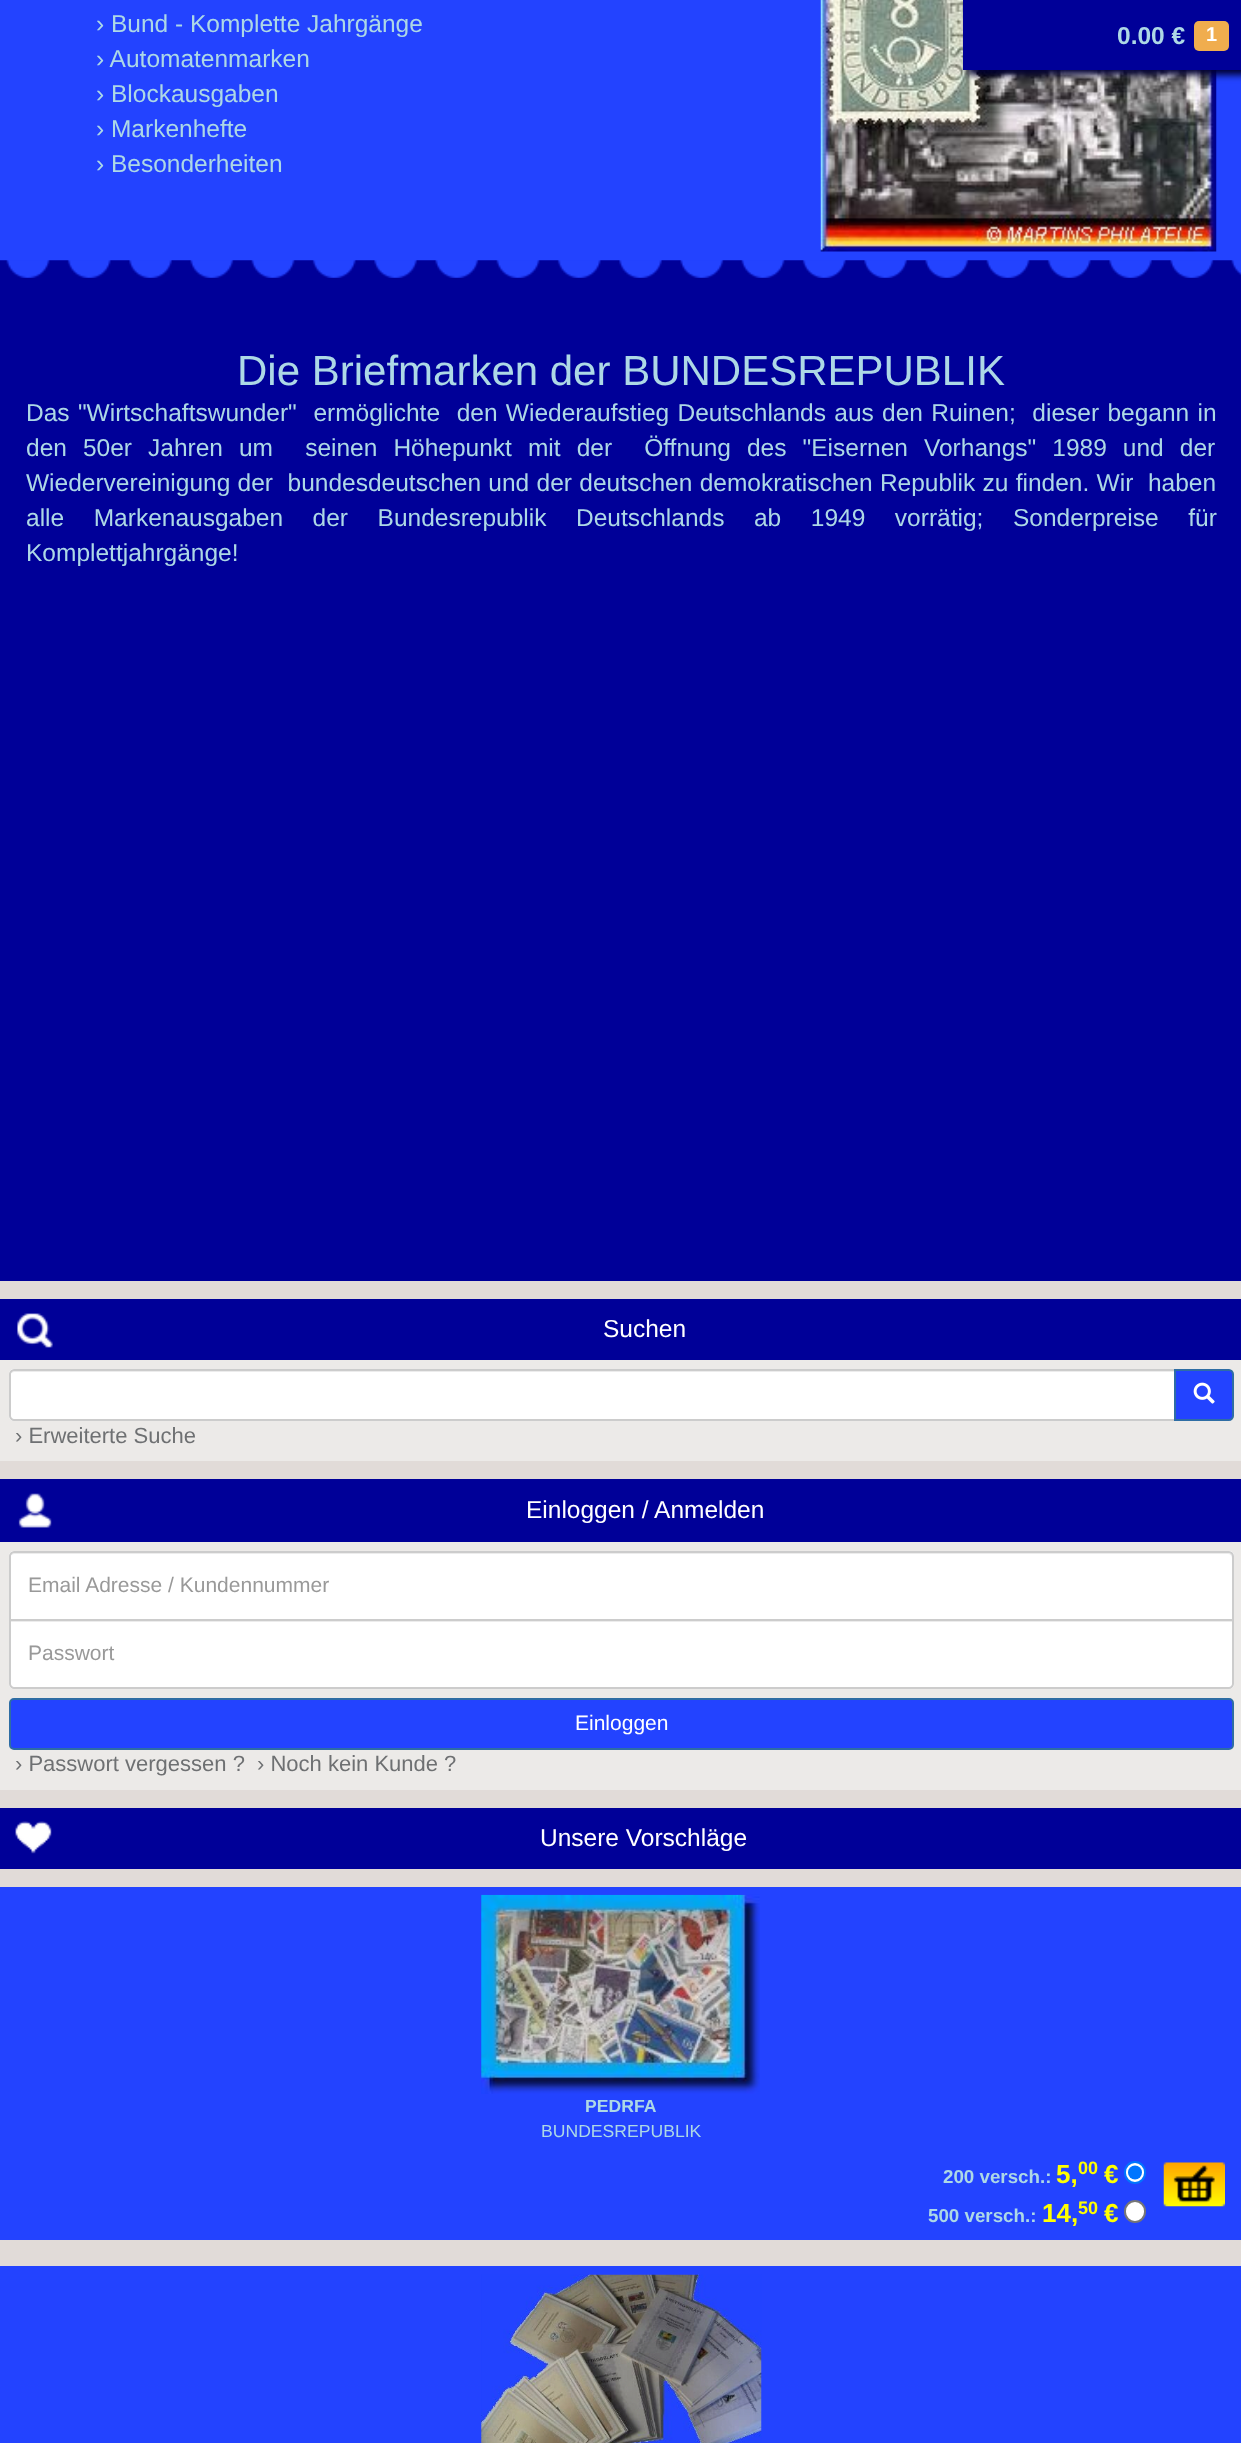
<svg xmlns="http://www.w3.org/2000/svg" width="1241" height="2443">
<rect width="100%" height="100%" fill="#e1dbd8"/>
<rect y="277" width="1241" height="1004" fill="#000098"/>
<rect width="1241" height="261" fill="#2343ff"/>
<text x="96" y="32" style="font-family:Liberation Sans;font-size:24.5px;fill:#add8e6">› Bund - Komplette Jahrgänge</text>
<text x="96" y="67" style="font-family:Liberation Sans;font-size:24.5px;fill:#add8e6">› Automatenmarken</text>
<text x="96" y="102" style="font-family:Liberation Sans;font-size:24.5px;fill:#add8e6">› Blockausgaben</text>
<text x="96" y="137" style="font-family:Liberation Sans;font-size:24.5px;fill:#add8e6">› Markenhefte</text>
<text x="96" y="172" style="font-family:Liberation Sans;font-size:24.5px;fill:#add8e6">› Besonderheiten</text>
<image x="820" y="0" width="397" height="252" href="media/1.png"/>
<image x="0" y="260" width="1241" height="18" href="media/2.png"/>
<text x="237" y="385" style="font-family:Liberation Sans;font-size:42px;fill:#add8e6">Die Briefmarken der BUNDESREPUBLIK</text>
<text x="26" y="421" word-spacing="1.5" style="font-family:Liberation Sans;font-size:24.5px;fill:#add8e6" xml:space="preserve">Das "Wirtschaftswunder"  ermöglichte  den Wiederaufstieg Deutschlands aus den Ruinen;  dieser begann in</text>
<text x="26" y="456" word-spacing="9.25" style="font-family:Liberation Sans;font-size:24.5px;fill:#add8e6" xml:space="preserve">den 50er Jahren um  seinen Höhepunkt mit der  Öffnung des "Eisernen Vorhangs" 1989 und der</text>
<text x="26" y="491" word-spacing="0.5" style="font-family:Liberation Sans;font-size:24.5px;fill:#add8e6" xml:space="preserve">Wiedervereinigung der  bundesdeutschen und der deutschen demokratischen Republik zu finden. Wir  haben</text>
<text x="26" y="526" word-spacing="22.75" style="font-family:Liberation Sans;font-size:24.5px;fill:#add8e6">alle Markenausgaben der Bundesrepublik Deutschlands ab 1949 vorrätig; Sonderpreise für</text>
<text x="26" y="561" style="font-family:Liberation Sans;font-size:24.5px;fill:#add8e6">Komplettjahrgänge!</text>
<rect y="1360" width="1241" height="101" fill="#eceae8"/>
<rect y="1299" width="1241" height="61" fill="#000098"/>
<image x="17" y="1313" width="36" height="35" href="media/3.png"/>
<text x="603" y="1337" style="font-family:Liberation Sans;font-size:24.5px;fill:#fff">Suchen</text>
<path d="M14 1369h1162v52h-1162c-3 0-5-2-5-5v-42c0-3 2-5 5-5z" fill="#fff"/>
<path d="M14 1372h1160v-2h-1159l-3 1l-1 2z" fill="#ececec"/>
<path d="M14 1370h1161v50h-1161c-2 0-4-2-4-4v-42c0-2 2-4 4-4z" fill="none" stroke="#ccc" stroke-width="2"/>
<path d="M1175 1370h54c2 0 4 2 4 4v42c0 2-2 4-4 4h-54z" fill="#2343ff" stroke="#2e6da4" stroke-width="2"/>
<image x="1193" y="1382" width="22" height="22" href="media/4.png"/>
<text x="15" y="1443" style="font-family:Liberation Sans;font-size:22px;fill:#6e7072">› Erweiterte Suche</text>
<rect y="1542" width="1241" height="248" fill="#eceae8"/>
<rect y="1479" width="1241" height="63" fill="#000098"/>
<image x="18" y="1493" width="34" height="35" href="media/5.png"/>
<text x="526" y="1518" style="font-family:Liberation Sans;font-size:24.5px;fill:#fff">Einloggen / Anmelden</text>
<path d="M14 1551h1215c3 0 5 2 5 5v65h-1225v-65c0-3 2-5 5-5z" fill="#fff"/>
<path d="M14 1554h1214c2 0 4 2 4 4v-2c0-2-2-4-4-4h-1213c-2 0-4 2-4 3z" fill="#ececec"/>
<path d="M14 1552h1215c2 0 4 2 4 4v64h-1223v-64c0-2 2-4 4-4z" fill="none" stroke="#ccc" stroke-width="2"/>
<text x="28" y="1592" style="font-family:Liberation Sans;font-size:21px;fill:#999">Email Adresse / Kundennummer</text>
<path d="M9 1619h1225v65c0 3-2 5-5 5h-1215c-3 0-5-2-5-5z" fill="#fff"/>
<rect x="11" y="1621" width="1221" height="1" fill="#ececec"/>
<path d="M10 1620h1223v64c0 2-2 4-4 4h-1215c-2 0-4-2-4-4z" fill="none" stroke="#ccc" stroke-width="2"/>
<text x="28" y="1660" style="font-family:Liberation Sans;font-size:21px;fill:#999">Passwort</text>
<rect x="10" y="1699" width="1223" height="50" rx="4" fill="#2343ff" stroke="#2e6da4" stroke-width="2"/>
<text x="575" y="1730" style="font-family:Liberation Sans;font-size:21px;fill:#fff">Einloggen</text>
<text x="15" y="1771" style="font-family:Liberation Sans;font-size:22px;fill:#6e7072">› Passwort vergessen ?</text>
<text x="257" y="1771" style="font-family:Liberation Sans;font-size:22px;fill:#6e7072">› Noch kein Kunde ?</text>
<rect y="1808" width="1241" height="61" fill="#000098"/>
<image x="15" y="1821" width="37" height="33" href="media/6.png"/>
<text x="540" y="1846" style="font-family:Liberation Sans;font-size:24.5px;fill:#fff">Unsere Vorschläge</text>
<rect y="1887" width="1241" height="353" fill="#2343ff"/>
<image x="481" y="1894" width="279" height="200" href="media/7.png"/>
<text x="585" y="2112" style="font-family:Liberation Sans;font-size:17.6px;font-weight:bold;fill:#add8e6">PEDRFA</text>
<text x="541" y="2137" style="font-family:Liberation Sans;font-size:17.6px;fill:#add8e6">BUNDESREPUBLIK</text>
<text x="943" y="2183" style="font-family:Liberation Sans;font-size:18.75px;font-weight:bold;fill:#add8e6">200 versch.:</text>
<text x="1056" y="2183" style="font-family:Liberation Sans;font-size:26px;font-weight:bold;fill:#ff0">5,</text>
<text x="1078" y="2174" style="font-family:Liberation Sans;font-size:18px;font-weight:bold;fill:#ff0">00</text>
<text x="1104" y="2183" style="font-family:Liberation Sans;font-size:26px;font-weight:bold;fill:#ff0">€</text>
<rect x="1125" y="2162" width="20" height="21" rx="10" fill="#fff" stroke="#0075ff" stroke-width="2"/>
<circle cx="1135" cy="2172.5" r="7" fill="#0075ff"/>
<image x="1163" y="2162" width="62" height="45" href="media/8.png"/>
<text x="928" y="2222" style="font-family:Liberation Sans;font-size:18.75px;font-weight:bold;fill:#add8e6">500 versch.:</text>
<text x="1042" y="2222" style="font-family:Liberation Sans;font-size:26px;font-weight:bold;fill:#ff0">14,</text>
<text x="1078" y="2214" style="font-family:Liberation Sans;font-size:18px;font-weight:bold;fill:#ff0">50</text>
<text x="1104" y="2222" style="font-family:Liberation Sans;font-size:26px;font-weight:bold;fill:#ff0">€</text>
<rect x="1125" y="2201" width="20" height="21" rx="10" fill="#fff" stroke="#767676" stroke-width="2"/>
<rect y="2266" width="1241" height="177" fill="#2343ff"/>
<image x="481" y="2274" width="281" height="169" href="media/9.png"/>
<rect x="968" y="5" width="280" height="70" fill="#003" filter="blur(3.5px)"/>
<rect x="963" width="278" height="70" fill="#000098"/>
<text x="1117" y="44" style="font-family:Liberation Sans;font-size:24.5px;font-weight:bold;fill:#add8e6">0.00 €</text>
<rect x="1194" y="21" width="35" height="30" rx="5" fill="#f0ad4e"/>
<text x="1206" y="41" style="font-family:Liberation Sans;font-size:20px;font-weight:bold;fill:#fff">1</text>
</svg>
